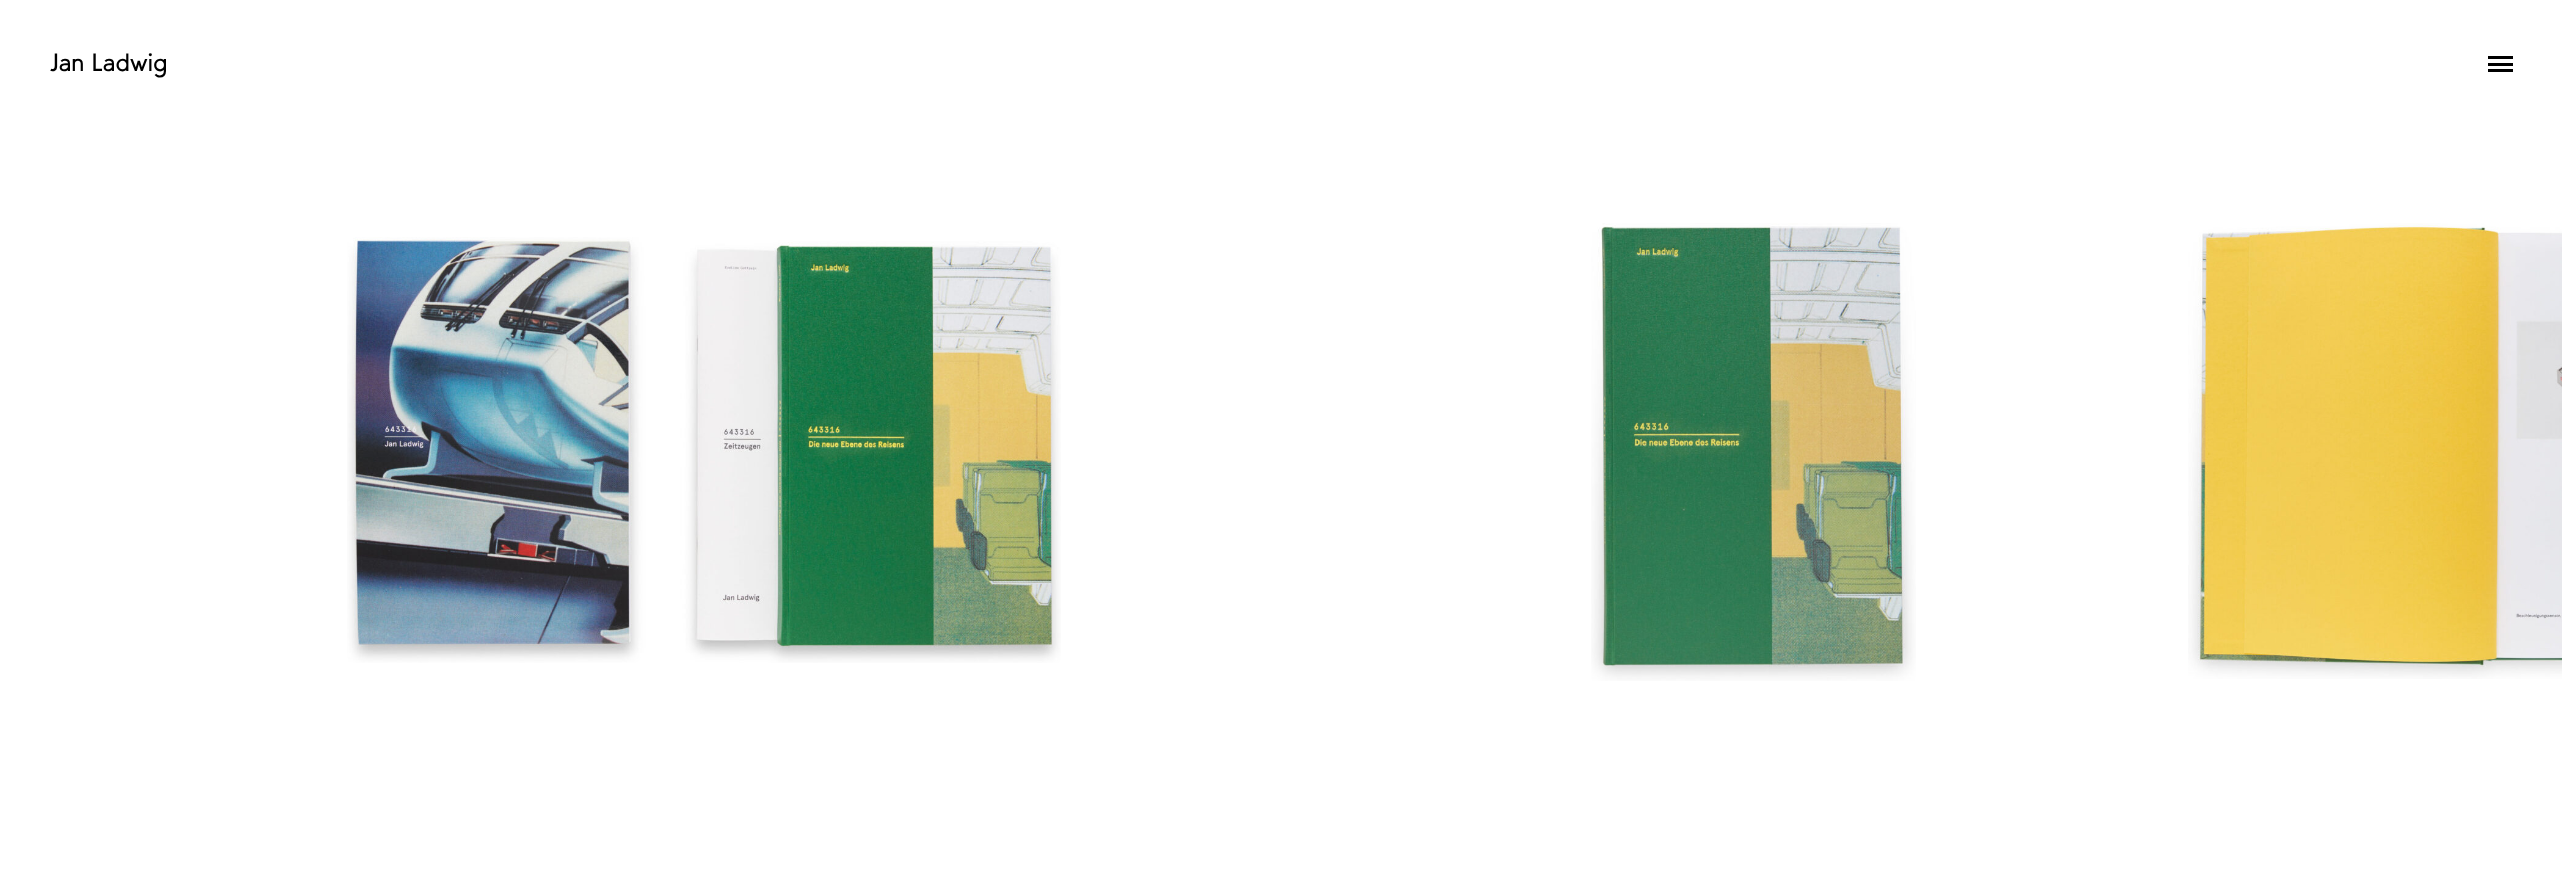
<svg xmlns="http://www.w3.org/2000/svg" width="2562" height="891">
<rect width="100%" height="100%" fill="#fff"/>
<text x="50" y="71" style="font-family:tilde;font-size:25px;fill:#000">Jan Ladwig</text>
<rect x="2488" y="63" width="25" height="3" fill="#000"/>
<rect x="2488" y="56" width="25" height="3" fill="#000"/>
<rect x="2488" y="69" width="25" height="3" fill="#000"/>
<image x="347" y="237" width="714" height="426" href="media/1.png"/>
<image x="1591" y="223" width="325" height="458" href="media/2.png"/>
<image x="2188" y="223" width="374" height="456" href="media/3.png"/>
</svg>
